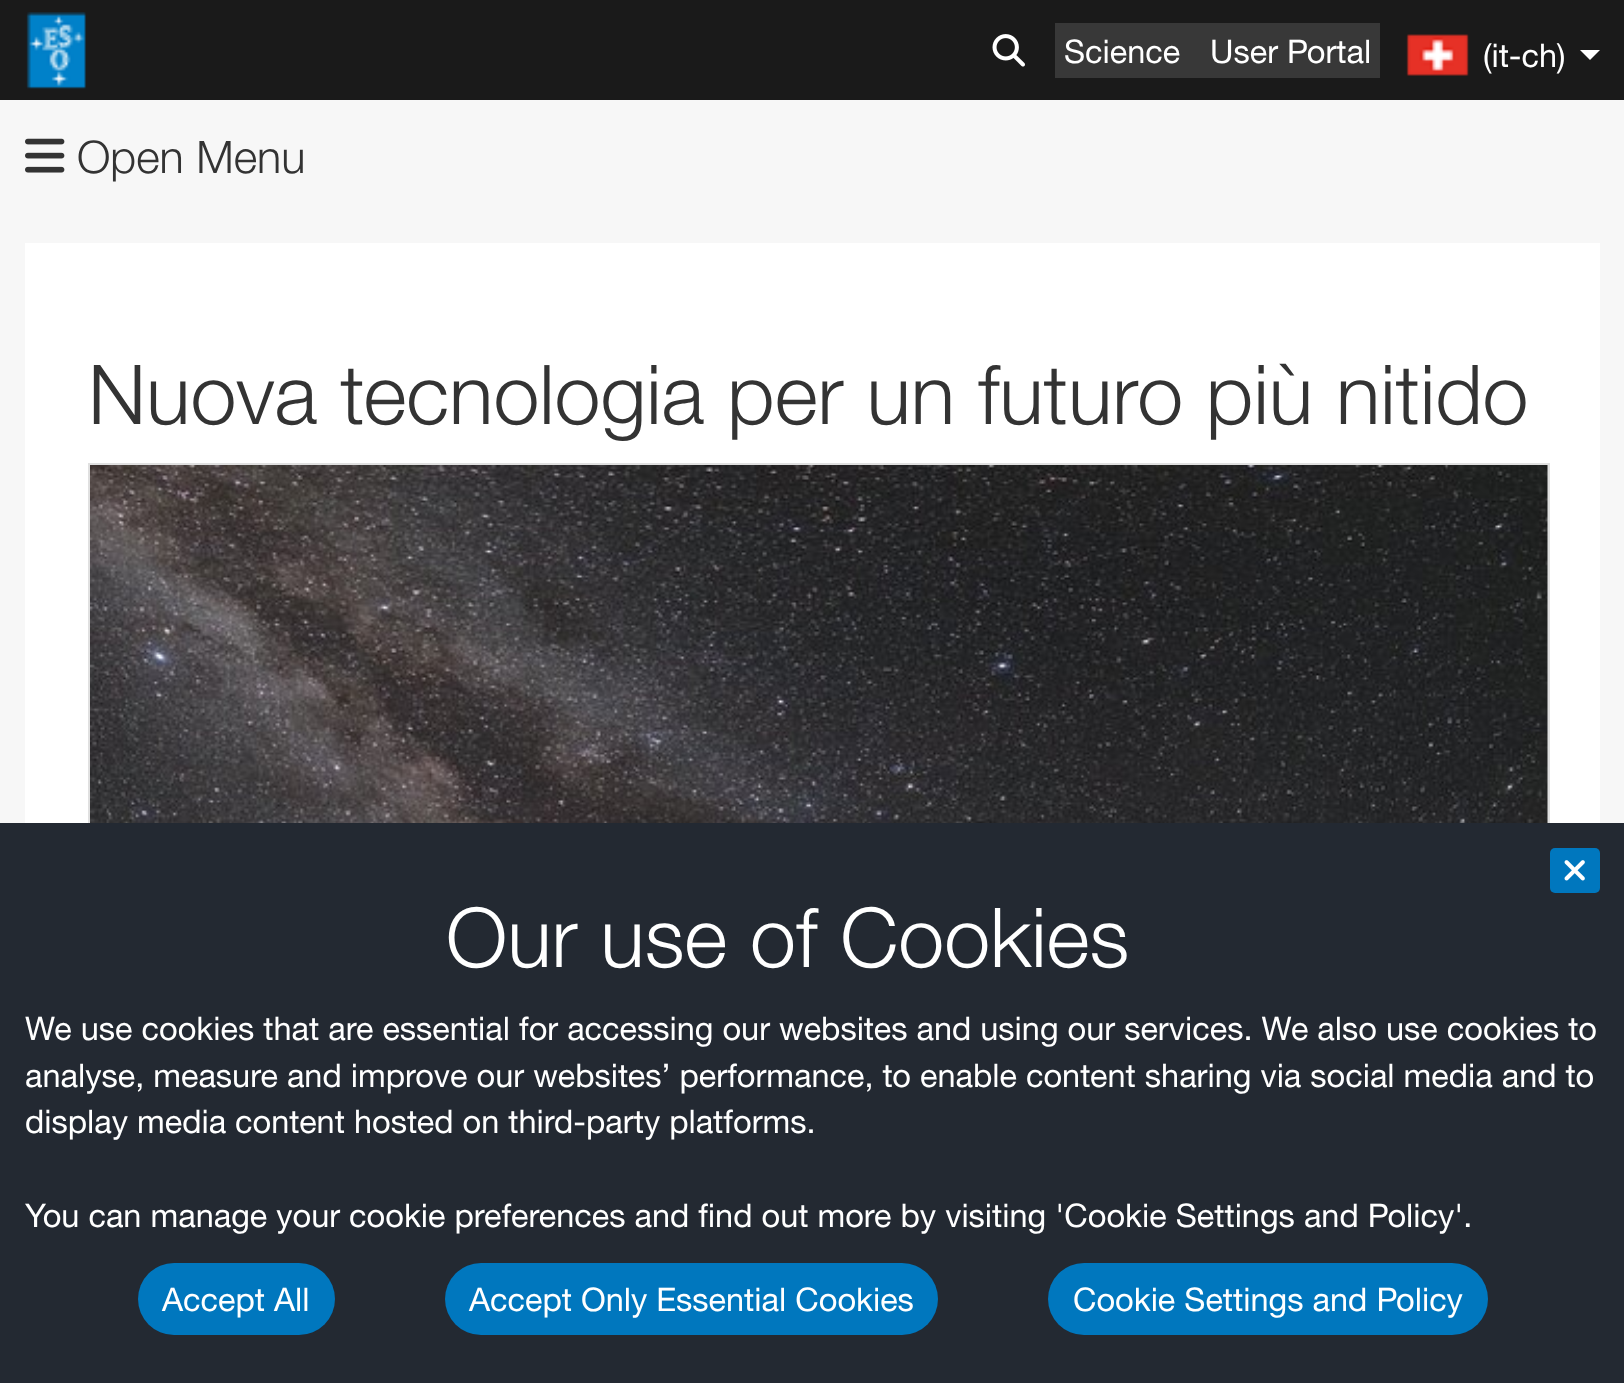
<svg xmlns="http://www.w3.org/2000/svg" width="1624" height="1383">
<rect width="100%" height="100%" fill="#f7f7f7"/>
<rect width="1624" height="100" fill="#1a1a1a"/>
<image x="26" y="12" width="60" height="77" href="media/1.png"/>
<image x="992" y="34" width="33" height="33" href="media/2.png"/>
<rect x="1055" y="23" width="325" height="55" fill="#383838"/>
<text x="1064" y="63" style="font-family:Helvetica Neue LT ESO;font-size:32.5px;fill:#fff">Science</text>
<text x="1210" y="63" style="font-family:Helvetica Neue LT ESO;font-size:32.5px;fill:#fff">User Portal</text>
<image x="1406" y="34" width="63" height="42" href="media/3.png"/>
<text x="1483" y="67" style="font-family:Helvetica Neue LT ESO;font-size:32.5px;fill:#fff">(it-ch)</text>
<path d="M1580 50h20l-10 10z" fill="#fff"/>
<image x="25" y="138" width="40" height="35" href="media/4.png"/>
<text x="77" y="173" style="font-family:Helvetica Neue LT ESO;font-size:45px;font-weight:300;fill:#333">Open Menu</text>
<rect x="25" y="243" width="1575" height="580" fill="#fff"/>
<text x="88" y="424" style="font-family:Helvetica Neue LT ESO;font-size:82.5px;font-weight:300;fill:#333">Nuova tecnologia per un futuro più nitido</text>
<rect x="89.5" y="464.5" width="1459" height="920" fill="none" stroke="#e0e0e0" stroke-width="3"/>
<image x="90" y="465" width="1458" height="358" href="media/5.png"/>
<rect y="823" width="1624" height="560" fill="#232932"/>
<rect x="1550" y="848" width="50" height="45" rx="5" fill="#0077be"/>
<image x="1564" y="860" width="21" height="21" href="media/6.png"/>
<text x="446" y="967" style="font-family:Helvetica Neue LT ESO;font-size:82.5px;font-weight:300;fill:#fff">Our use of Cookies</text>
<text x="25" y="1040" style="font-family:Helvetica Neue LT ESO;font-size:32.5px;fill:#fff">We use cookies that are essential for accessing our websites and using our services. We also use cookies to</text>
<text x="25" y="1087" style="font-family:Helvetica Neue LT ESO;font-size:32.5px;fill:#fff">analyse, measure and improve our websites’ performance, to enable content sharing via social media and to</text>
<text x="25" y="1133" style="font-family:Helvetica Neue LT ESO;font-size:32.5px;fill:#fff">display media content hosted on third-party platforms.</text>
<text x="25" y="1227" style="font-family:Helvetica Neue LT ESO;font-size:32.5px;fill:#fff">You can manage your cookie preferences and find out more by visiting 'Cookie Settings and Policy'.</text>
<rect x="138" y="1263" width="197" height="72" rx="36" fill="#0077be"/>
<text x="162" y="1311" style="font-family:Helvetica Neue LT ESO;font-size:32.5px;fill:#fff">Accept All</text>
<rect x="445" y="1263" width="493" height="72" rx="36" fill="#0077be"/>
<text x="469" y="1311" style="font-family:Helvetica Neue LT ESO;font-size:32.5px;fill:#fff">Accept Only Essential Cookies</text>
<rect x="1048" y="1263" width="440" height="72" rx="36" fill="#0077be"/>
<text x="1073" y="1311" style="font-family:Helvetica Neue LT ESO;font-size:32.5px;fill:#fff">Cookie Settings and Policy</text>
</svg>
